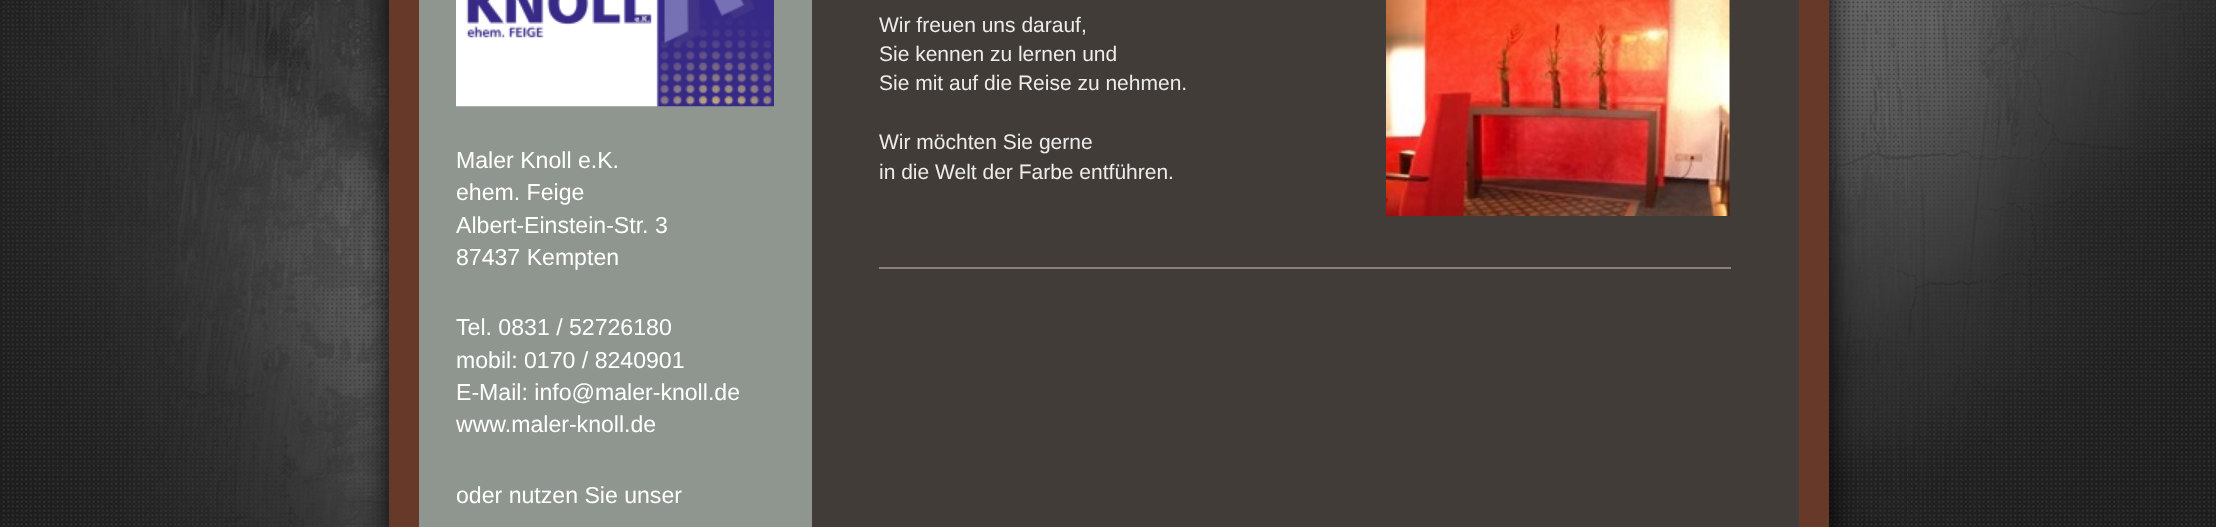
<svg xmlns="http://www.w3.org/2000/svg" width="2216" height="527">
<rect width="100%" height="100%" fill="#fff"/>
<image x="0" y="0" width="2216" height="527" href="media/1.png"/>
<rect x="389" y="-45" width="1440" height="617" fill="#000" filter="blur(15px)"/>
<rect x="389" width="1440" height="527" fill="#673929"/>
<rect x="812" width="987" height="527" fill="#423c39"/>
<rect x="419" width="393" height="527" fill="#8f968f"/>
<text x="879" y="32" style="font-family:Liberation Sans;font-size:21px;fill:#ececeb">Wir freuen uns darauf,</text>
<text x="879" y="61" style="font-family:Liberation Sans;font-size:21px;fill:#ececeb">Sie kennen zu lernen und</text>
<text x="879" y="90" style="font-family:Liberation Sans;font-size:21px;fill:#ececeb">Sie mit auf die Reise zu nehmen.</text>
<text x="879" y="149" style="font-family:Liberation Sans;font-size:21px;fill:#ececeb">Wir möchten Sie gerne</text>
<text x="879" y="179" style="font-family:Liberation Sans;font-size:21px;fill:#ececeb">in die Welt der Farbe entführen.</text>
<image x="1386" y="0" width="344" height="216" href="media/2.png"/>
<rect x="879" y="267" width="852" height="2" fill="#8b807a"/>
<image x="456" y="0" width="318" height="107" href="media/3.png"/>
<text x="456" y="168" style="font-family:Liberation Sans;font-size:23.1px;fill:#fff">Maler Knoll e.K.</text>
<text x="456" y="200" style="font-family:Liberation Sans;font-size:23.1px;fill:#fff">ehem. Feige</text>
<text x="456" y="233" style="font-family:Liberation Sans;font-size:23.1px;fill:#fff">Albert-Einstein-Str. 3</text>
<text x="456" y="265" style="font-family:Liberation Sans;font-size:23.1px;fill:#fff">87437 Kempten</text>
<text x="456" y="335" style="font-family:Liberation Sans;font-size:23.1px;fill:#fff">Tel. 0831 / 52726180</text>
<text x="456" y="368" style="font-family:Liberation Sans;font-size:23.1px;fill:#fff">mobil: 0170 / 8240901</text>
<text x="456" y="400" style="font-family:Liberation Sans;font-size:23.1px;fill:#fff">E-Mail: info@maler-knoll.de</text>
<text x="456" y="432" style="font-family:Liberation Sans;font-size:23.1px;fill:#fff">www.maler-knoll.de</text>
<text x="456" y="503" style="font-family:Liberation Sans;font-size:23.1px;fill:#fff">oder nutzen Sie unser</text>
</svg>
